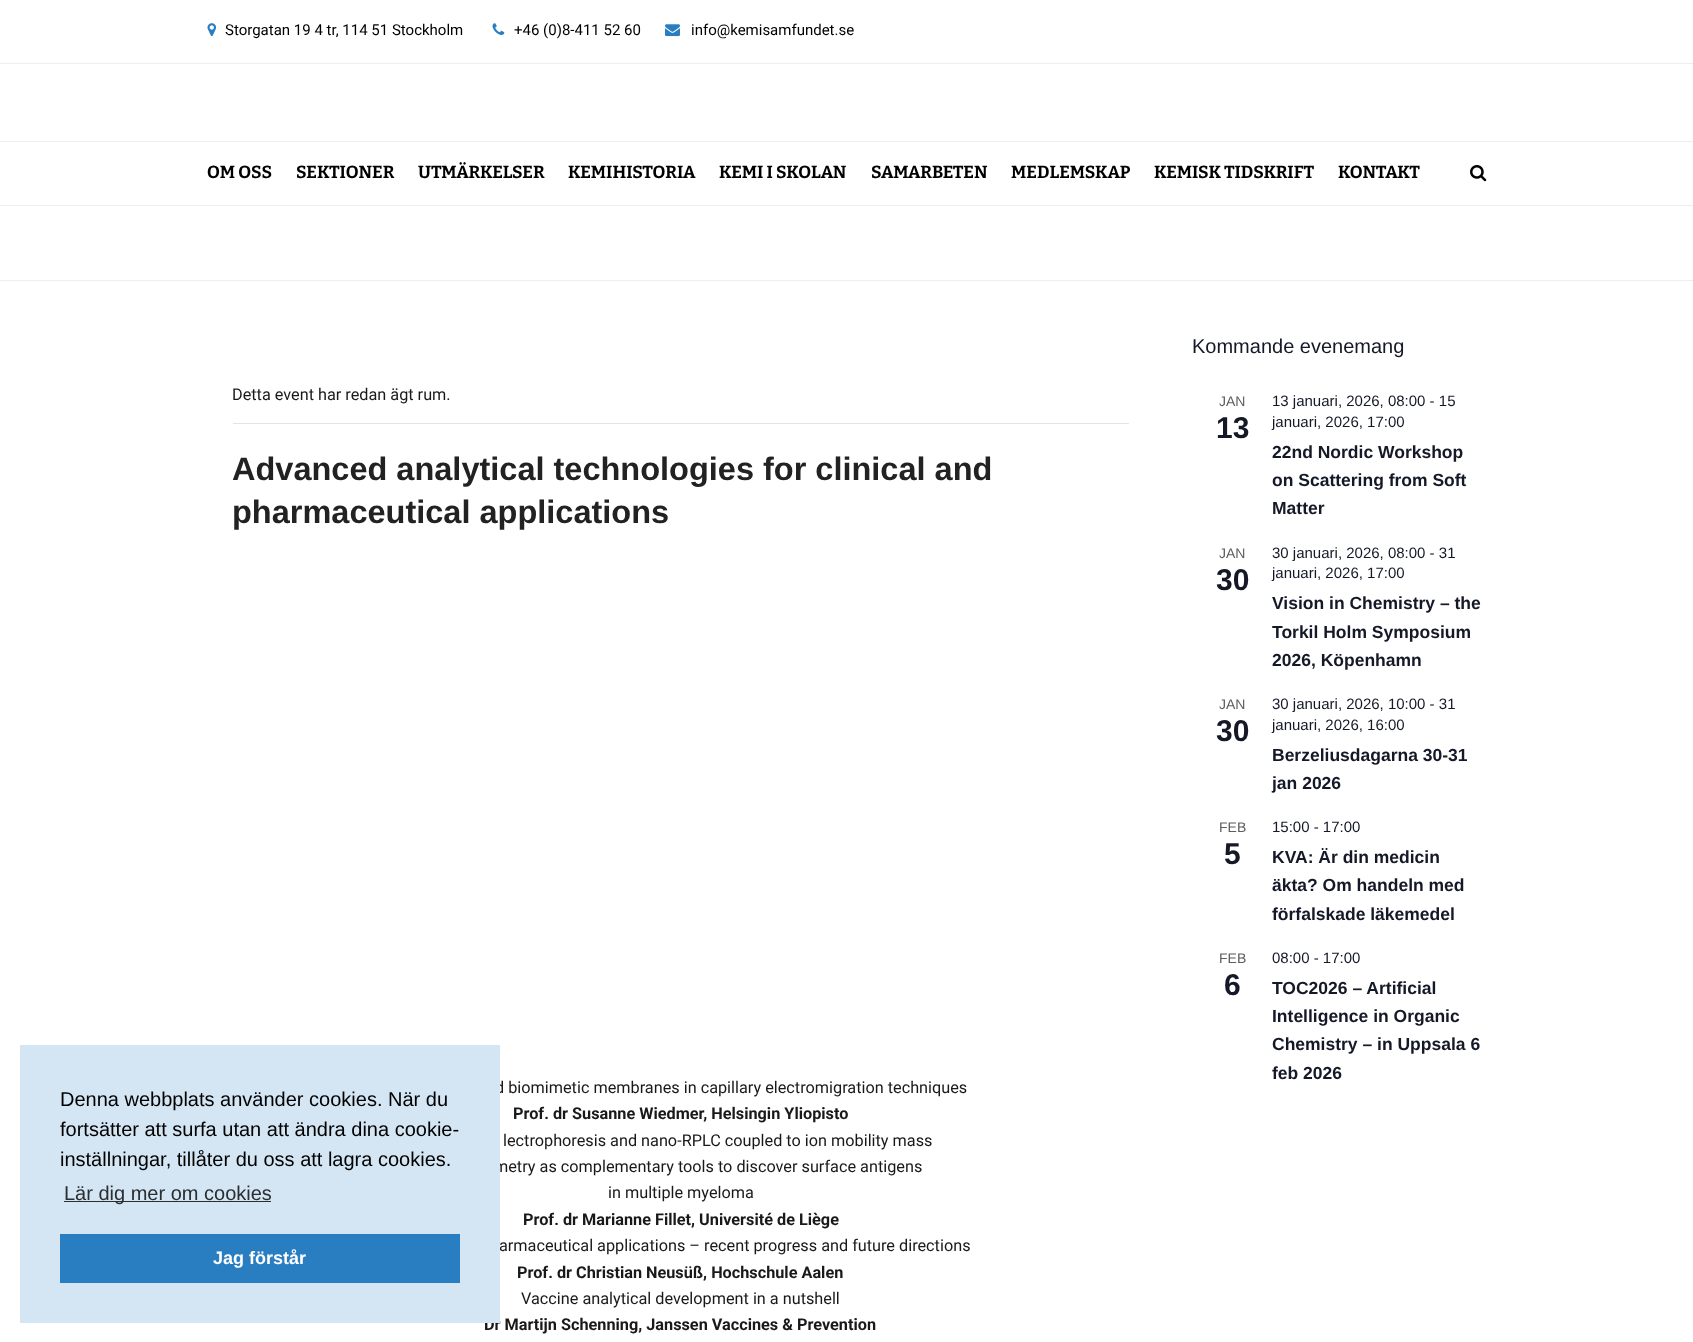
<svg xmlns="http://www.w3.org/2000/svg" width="1693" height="1342">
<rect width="100%" height="100%" fill="#fff"/>
<rect y="63" width="1693" height="1" fill="#eee"/>
<image x="207" y="23" width="10" height="13" href="media/1.png"/>
<text x="225" y="35" style="font-family:Roboto;font-size:15px;fill:#000">Storgatan 19 4 tr, 114 51 Stockholm</text>
<image x="492" y="23" width="13" height="12" href="media/2.png"/>
<text x="514" y="35" style="font-family:Roboto;font-size:15px;fill:#000">+46 (0)8-411 52 60</text>
<image x="665" y="24" width="15" height="13" href="media/3.png"/>
<text x="691" y="35" style="font-family:Roboto;font-size:15px;fill:#000">info@kemisamfundet.se</text>
<rect y="141" width="1693" height="1" fill="#eee"/>
<text x="207" y="178" style="font-family:Bitter;font-size:17.5px;font-weight:bold;fill:#000">OM OSS</text>
<text x="296" y="178" style="font-family:Bitter;font-size:17.5px;font-weight:bold;fill:#000">SEKTIONER</text>
<text x="418" y="178" style="font-family:Bitter;font-size:17.5px;font-weight:bold;fill:#000">UTMÄRKELSER</text>
<text x="568" y="178" style="font-family:Bitter;font-size:17.5px;font-weight:bold;fill:#000">KEMIHISTORIA</text>
<text x="719" y="178" style="font-family:Bitter;font-size:17.5px;font-weight:bold;fill:#000">KEMI I SKOLAN</text>
<text x="871" y="178" style="font-family:Bitter;font-size:17.5px;font-weight:bold;fill:#000">SAMARBETEN</text>
<text x="1011" y="178" style="font-family:Bitter;font-size:17.5px;font-weight:bold;fill:#000">MEDLEMSKAP</text>
<text x="1154" y="178" style="font-family:Bitter;font-size:17.5px;font-weight:bold;fill:#000">KEMISK TIDSKRIFT</text>
<text x="1338" y="178" style="font-family:Bitter;font-size:17.5px;font-weight:bold;fill:#000">KONTAKT</text>
<image x="1470" y="165" width="17" height="17" href="media/4.png"/>
<rect y="205" width="1693" height="1" fill="#eee"/>
<rect y="280" width="1693" height="1" fill="#eee"/>
<rect x="233" y="423" width="896" height="1" fill="#e4e4e4"/>
<text x="232" y="400" style="font-family:Roboto;font-size:16.25px;fill:#191919">Detta event har redan ägt rum.</text>
<text x="232" y="480" style="font-family:Liberation Sans;font-size:32.5px;font-weight:bold;fill:#222">Advanced analytical technologies for clinical and</text>
<text x="232" y="523" style="font-family:Liberation Sans;font-size:32.5px;font-weight:bold;fill:#222">pharmaceutical applications</text>
<text x="495" y="1093" style="font-family:Roboto;font-size:16.25px;fill:#191919">d biomimetic membranes in capillary electromigration techniques</text>
<text x="513" y="1119" style="font-family:Roboto;font-size:16.25px;font-weight:bold;fill:#191919">Prof. dr Susanne Wiedmer, Helsingin Yliopisto</text>
<text x="503" y="1146" style="font-family:Roboto;font-size:16.25px;fill:#191919">lectrophoresis and nano-RPLC coupled to ion mobility mass</text>
<text x="494" y="1172" style="font-family:Roboto;font-size:16.25px;fill:#191919">metry as complementary tools to discover surface antigens</text>
<text x="608" y="1198" style="font-family:Roboto;font-size:16.25px;fill:#191919">in multiple myeloma</text>
<text x="523" y="1225" style="font-family:Roboto;font-size:16.25px;font-weight:bold;fill:#191919">Prof. dr Marianne Fillet, Université de Liège</text>
<text x="499" y="1251" style="font-family:Roboto;font-size:16.25px;fill:#191919">armaceutical applications – recent progress and future directions</text>
<text x="517" y="1278" style="font-family:Roboto;font-size:16.25px;font-weight:bold;fill:#191919">Prof. dr Christian Neusüß, Hochschule Aalen</text>
<text x="521" y="1304" style="font-family:Roboto;font-size:16.25px;fill:#191919">Vaccine analytical development in a nutshell</text>
<text x="484" y="1330" style="font-family:Roboto;font-size:16.25px;font-weight:bold;fill:#191919">Dr Martijn Schenning, Janssen Vaccines &amp; Prevention</text>
<text x="1192" y="353" style="font-family:Liberation Sans;font-size:20px;fill:#141827">Kommande evenemang</text>
<text x="1219" y="406" style="font-family:Liberation Sans;font-size:14px;fill:#5d5d5d">JAN</text>
<text x="1216" y="438" style="font-family:Liberation Sans;font-size:30px;font-weight:bold;fill:#141827">13</text>
<text x="1272" y="406" style="font-family:Liberation Sans;font-size:15px;fill:#141827">13 januari, 2026, 08:00 - 15</text>
<text x="1272" y="427" style="font-family:Liberation Sans;font-size:15px;fill:#141827">januari, 2026, 17:00</text>
<text x="1272" y="458" style="font-family:Liberation Sans;font-size:17.5px;font-weight:bold;fill:#141827">22nd Nordic Workshop</text>
<text x="1272" y="486" style="font-family:Liberation Sans;font-size:17.5px;font-weight:bold;fill:#141827">on Scattering from Soft</text>
<text x="1272" y="514" style="font-family:Liberation Sans;font-size:17.5px;font-weight:bold;fill:#141827">Matter</text>
<text x="1219" y="558" style="font-family:Liberation Sans;font-size:14px;fill:#5d5d5d">JAN</text>
<text x="1216" y="590" style="font-family:Liberation Sans;font-size:30px;font-weight:bold;fill:#141827">30</text>
<text x="1272" y="558" style="font-family:Liberation Sans;font-size:15px;fill:#141827">30 januari, 2026, 08:00 - 31</text>
<text x="1272" y="578" style="font-family:Liberation Sans;font-size:15px;fill:#141827">januari, 2026, 17:00</text>
<text x="1272" y="609" style="font-family:Liberation Sans;font-size:17.5px;font-weight:bold;fill:#141827">Vision in Chemistry – the</text>
<text x="1272" y="638" style="font-family:Liberation Sans;font-size:17.5px;font-weight:bold;fill:#141827">Torkil Holm Symposium</text>
<text x="1272" y="666" style="font-family:Liberation Sans;font-size:17.5px;font-weight:bold;fill:#141827">2026, Köpenhamn</text>
<text x="1219" y="709" style="font-family:Liberation Sans;font-size:14px;fill:#5d5d5d">JAN</text>
<text x="1216" y="741" style="font-family:Liberation Sans;font-size:30px;font-weight:bold;fill:#141827">30</text>
<text x="1272" y="709" style="font-family:Liberation Sans;font-size:15px;fill:#141827">30 januari, 2026, 10:00 - 31</text>
<text x="1272" y="730" style="font-family:Liberation Sans;font-size:15px;fill:#141827">januari, 2026, 16:00</text>
<text x="1272" y="761" style="font-family:Liberation Sans;font-size:17.5px;font-weight:bold;fill:#141827">Berzeliusdagarna 30-31</text>
<text x="1272" y="789" style="font-family:Liberation Sans;font-size:17.5px;font-weight:bold;fill:#141827">jan 2026</text>
<text x="1219" y="832" style="font-family:Liberation Sans;font-size:14px;fill:#5d5d5d">FEB</text>
<text x="1224" y="864" style="font-family:Liberation Sans;font-size:30px;font-weight:bold;fill:#141827">5</text>
<text x="1272" y="832" style="font-family:Liberation Sans;font-size:15px;fill:#141827">15:00 - 17:00</text>
<text x="1272" y="863" style="font-family:Liberation Sans;font-size:17.5px;font-weight:bold;fill:#141827">KVA: Är din medicin</text>
<text x="1272" y="891" style="font-family:Liberation Sans;font-size:17.5px;font-weight:bold;fill:#141827">äkta? Om handeln med</text>
<text x="1272" y="920" style="font-family:Liberation Sans;font-size:17.5px;font-weight:bold;fill:#141827">förfalskade läkemedel</text>
<text x="1219" y="963" style="font-family:Liberation Sans;font-size:14px;fill:#5d5d5d">FEB</text>
<text x="1224" y="995" style="font-family:Liberation Sans;font-size:30px;font-weight:bold;fill:#141827">6</text>
<text x="1272" y="963" style="font-family:Liberation Sans;font-size:15px;fill:#141827">08:00 - 17:00</text>
<text x="1272" y="994" style="font-family:Liberation Sans;font-size:17.5px;font-weight:bold;fill:#141827">TOC2026 – Artificial</text>
<text x="1272" y="1022" style="font-family:Liberation Sans;font-size:17.5px;font-weight:bold;fill:#141827">Intelligence in Organic</text>
<text x="1272" y="1050" style="font-family:Liberation Sans;font-size:17.5px;font-weight:bold;fill:#141827">Chemistry – in Uppsala 6</text>
<text x="1272" y="1079" style="font-family:Liberation Sans;font-size:17.5px;font-weight:bold;fill:#141827">feb 2026</text>
<rect x="20" y="1045" width="480" height="278" fill="#d4e5f3"/>
<text x="60" y="1106" style="font-family:Liberation Sans;font-size:20px;fill:#000">Denna webbplats använder cookies. När du</text>
<text x="60" y="1136" style="font-family:Liberation Sans;font-size:20px;fill:#000">fortsätter att surfa utan att ändra dina cookie-</text>
<text x="60" y="1166" style="font-family:Liberation Sans;font-size:20px;fill:#000">inställningar, tillåter du oss att lagra cookies.</text>
<rect x="64" y="1201" width="207" height="1" fill="#2a2e31"/>
<text x="64" y="1200" style="font-family:Liberation Sans;font-size:20px;fill:#2a2e31">Lär dig mer om cookies</text>
<rect x="60" y="1234" width="400" height="49" fill="#297ec2"/>
<text x="213" y="1264" style="font-family:Liberation Sans;font-size:18px;font-weight:bold;fill:#fff">Jag förstår</text>
</svg>
